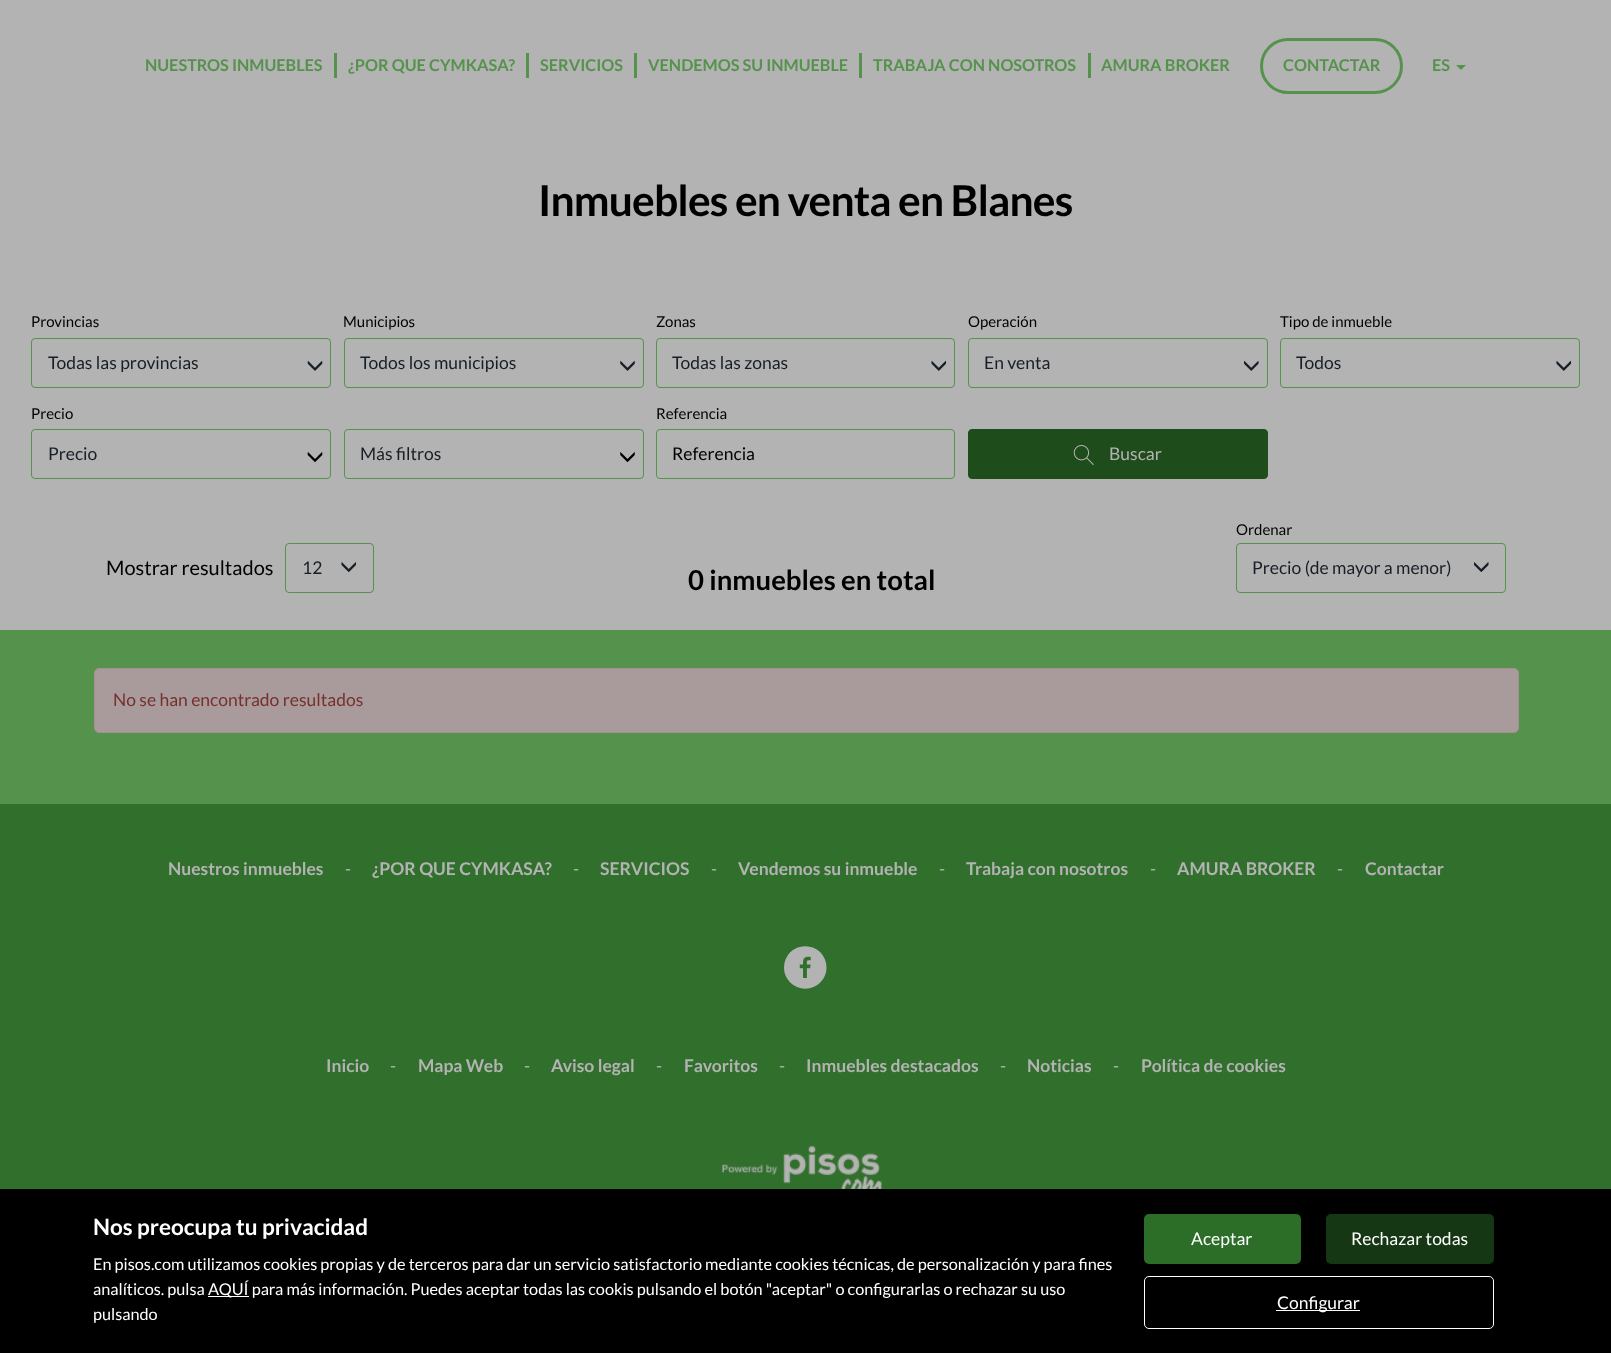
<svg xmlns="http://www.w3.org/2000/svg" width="1611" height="1353">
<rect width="100%" height="100%" fill="#b3b3b3"/>
<text x="145" y="71" style="font-family:Lato;font-size:16.25px;font-weight:bold;fill:#55924c">NUESTROS INMUEBLES</text>
<rect x="334" y="53" width="3" height="25" fill="#55924c"/>
<text x="348" y="71" style="font-family:Lato;font-size:16.25px;font-weight:bold;fill:#55924c">¿POR QUE CYMKASA?</text>
<rect x="526" y="53" width="3" height="25" fill="#55924c"/>
<text x="540" y="71" style="font-family:Lato;font-size:16.25px;font-weight:bold;fill:#55924c">SERVICIOS</text>
<rect x="634" y="53" width="3" height="25" fill="#55924c"/>
<text x="648" y="71" style="font-family:Lato;font-size:16.25px;font-weight:bold;fill:#55924c">VENDEMOS SU INMUEBLE</text>
<rect x="859" y="53" width="3" height="25" fill="#55924c"/>
<text x="873" y="71" style="font-family:Lato;font-size:16.25px;font-weight:bold;fill:#55924c">TRABAJA CON NOSOTROS</text>
<rect x="1088" y="53" width="3" height="25" fill="#55924c"/>
<text x="1101" y="71" style="font-family:Lato;font-size:16.25px;font-weight:bold;fill:#55924c">AMURA BROKER</text>
<rect x="1261.5" y="39.5" width="140" height="53" rx="26.5" fill="none" stroke="#55924c" stroke-width="3"/>
<text x="1283" y="71" style="font-family:Lato;font-size:16.25px;font-weight:bold;fill:#55924c">CONTACTAR</text>
<text x="1432" y="71" style="font-family:Lato;font-size:16.25px;font-weight:bold;fill:#55924c">ES</text>
<path d="M1456 65h10l-5 5z" fill="#55924c"/>
<text x="538" y="216" style="font-family:Lato;font-size:42.5px;font-weight:bold;letter-spacing:-0.85px;fill:#000">Inmuebles en venta en Blanes</text>
<text x="31" y="327" style="font-family:Lato;font-size:15px;fill:#000">Provincias</text>
<rect x="31.5" y="338.5" width="299" height="49" rx="3.5" fill="none" stroke="#55924c"/>
<text x="48" y="369" style="font-family:Lato;font-size:17.5px;fill:#171e26">Todas las provincias</text>
<image x="307" y="361" width="16" height="10" href="media/1.png"/>
<text x="343" y="327" style="font-family:Lato;font-size:15px;fill:#000">Municipios</text>
<rect x="344.5" y="338.5" width="299" height="49" rx="3.5" fill="none" stroke="#55924c"/>
<text x="360" y="369" style="font-family:Lato;font-size:17.5px;fill:#171e26">Todos los municipios</text>
<image x="620" y="360" width="15" height="11" href="media/2.png"/>
<text x="656" y="327" style="font-family:Lato;font-size:15px;fill:#000">Zonas</text>
<rect x="656.5" y="338.5" width="298" height="49" rx="3.5" fill="none" stroke="#55924c"/>
<text x="672" y="369" style="font-family:Lato;font-size:17.5px;fill:#171e26">Todas las zonas</text>
<image x="931" y="360" width="15" height="11" href="media/3.png"/>
<text x="968" y="327" style="font-family:Lato;font-size:15px;fill:#000">Operación</text>
<rect x="968.5" y="338.5" width="299" height="49" rx="3.5" fill="none" stroke="#55924c"/>
<text x="984" y="369" style="font-family:Lato;font-size:17.5px;fill:#171e26">En venta</text>
<image x="1244" y="360" width="15" height="11" href="media/4.png"/>
<text x="1280" y="327" style="font-family:Lato;font-size:15px;fill:#000">Tipo de inmueble</text>
<rect x="1280.5" y="338.5" width="299" height="49" rx="3.5" fill="none" stroke="#55924c"/>
<text x="1296" y="369" style="font-family:Lato;font-size:17.5px;fill:#171e26">Todos</text>
<image x="1556" y="360" width="15" height="11" href="media/3.png"/>
<text x="31" y="419" style="font-family:Lato;font-size:15px;fill:#000">Precio</text>
<rect x="31.5" y="429.5" width="299" height="49" rx="3.5" fill="none" stroke="#55924c"/>
<text x="48" y="460" style="font-family:Lato;font-size:17.5px;fill:#171e26">Precio</text>
<image x="307" y="452" width="16" height="10" href="media/5.png"/>
<rect x="344.5" y="429.5" width="299" height="49" rx="3.5" fill="none" stroke="#55924c"/>
<text x="360" y="460" style="font-family:Lato;font-size:17.5px;fill:#171e26">Más filtros</text>
<image x="620" y="452" width="15" height="10" href="media/6.png"/>
<text x="656" y="419" style="font-family:Lato;font-size:15px;fill:#000">Referencia</text>
<rect x="656.5" y="429.5" width="298" height="49" rx="3.5" fill="none" stroke="#55924c"/>
<text x="672" y="460" style="font-family:Lato;font-size:17.5px;fill:#000">Referencia</text>
<rect x="968.5" y="429.5" width="299" height="49" rx="3.5" fill="#1f4c1b" stroke="#1f4c1b"/>
<image x="1073" y="445" width="21" height="20" href="media/7.png"/>
<text x="1109" y="460" style="font-family:Lato;font-size:17.5px;fill:#b3b3b3">Buscar</text>
<text x="106" y="575" style="font-family:Lato;font-size:20px;fill:#000">Mostrar resultados</text>
<rect x="285.5" y="543.5" width="88" height="49" rx="3.5" fill="none" stroke="#55924c"/>
<text x="302" y="574" style="font-family:Lato;font-size:17.5px;fill:#171e26">12</text>
<image x="341" y="562" width="15" height="10" href="media/8.png"/>
<text x="688" y="590" style="font-family:Lato;font-size:27.5px;font-weight:bold;fill:#000">0 inmuebles en total</text>
<text x="1236" y="535" style="font-family:Lato;font-size:15px;fill:#000">Ordenar</text>
<rect x="1236.5" y="543.5" width="269" height="49" rx="3.5" fill="none" stroke="#55924c"/>
<text x="1252" y="574" style="font-family:Lato;font-size:17.5px;fill:#171e26">Precio (de mayor a menor)</text>
<image x="1474" y="562" width="15" height="10" href="media/9.png"/>
<rect y="630" width="1611" height="174" fill="#55924c"/>
<rect x="94.5" y="668.5" width="1424" height="64" rx="4.5" fill="#a99b9b" stroke="#a58f92"/>
<text x="113" y="706" style="font-family:Lato;font-size:17.5px;fill:#76302e">No se han encontrado resultados</text>
<rect y="804" width="1611" height="385" fill="#316f2c"/>
<text x="168" y="875" style="font-family:Lato;font-size:17.5px;font-weight:bold;fill:#b3b3b3">Nuestros inmuebles</text>
<text x="345" y="875" style="font-family:Lato;font-size:17.5px;fill:#b3b3b3">-</text>
<text x="372" y="875" style="font-family:Lato;font-size:17.5px;font-weight:bold;fill:#b3b3b3">¿POR QUE CYMKASA?</text>
<text x="573" y="875" style="font-family:Lato;font-size:17.5px;fill:#b3b3b3">-</text>
<text x="600" y="875" style="font-family:Lato;font-size:17.5px;font-weight:bold;fill:#b3b3b3">SERVICIOS</text>
<text x="711" y="875" style="font-family:Lato;font-size:17.5px;fill:#b3b3b3">-</text>
<text x="738" y="875" style="font-family:Lato;font-size:17.5px;font-weight:bold;fill:#b3b3b3">Vendemos su inmueble</text>
<text x="939" y="875" style="font-family:Lato;font-size:17.5px;fill:#b3b3b3">-</text>
<text x="966" y="875" style="font-family:Lato;font-size:17.5px;font-weight:bold;fill:#b3b3b3">Trabaja con nosotros</text>
<text x="1150" y="875" style="font-family:Lato;font-size:17.5px;fill:#b3b3b3">-</text>
<text x="1177" y="875" style="font-family:Lato;font-size:17.5px;font-weight:bold;fill:#b3b3b3">AMURA BROKER</text>
<text x="1337" y="875" style="font-family:Lato;font-size:17.5px;fill:#b3b3b3">-</text>
<text x="1365" y="875" style="font-family:Lato;font-size:17.5px;font-weight:bold;fill:#b3b3b3">Contactar</text>
<text x="784" y="986" style="font-family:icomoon;font-size:42.5px;fill:#b3b3b3">7</text>
<text x="326" y="1072" style="font-family:Lato;font-size:17.5px;font-weight:bold;fill:#b3b3b3">Inicio</text>
<text x="390" y="1072" style="font-family:Lato;font-size:17.5px;fill:#b3b3b3">-</text>
<text x="418" y="1072" style="font-family:Lato;font-size:17.5px;font-weight:bold;fill:#b3b3b3">Mapa Web</text>
<text x="524" y="1072" style="font-family:Lato;font-size:17.5px;fill:#b3b3b3">-</text>
<text x="551" y="1072" style="font-family:Lato;font-size:17.5px;font-weight:bold;fill:#b3b3b3">Aviso legal</text>
<text x="656" y="1072" style="font-family:Lato;font-size:17.5px;fill:#b3b3b3">-</text>
<text x="684" y="1072" style="font-family:Lato;font-size:17.5px;font-weight:bold;fill:#b3b3b3">Favoritos</text>
<text x="779" y="1072" style="font-family:Lato;font-size:17.5px;fill:#b3b3b3">-</text>
<text x="806" y="1072" style="font-family:Lato;font-size:17.5px;font-weight:bold;fill:#b3b3b3">Inmuebles destacados</text>
<text x="1000" y="1072" style="font-family:Lato;font-size:17.5px;fill:#b3b3b3">-</text>
<text x="1027" y="1072" style="font-family:Lato;font-size:17.5px;font-weight:bold;fill:#b3b3b3">Noticias</text>
<text x="1113" y="1072" style="font-family:Lato;font-size:17.5px;fill:#b3b3b3">-</text>
<text x="1141" y="1072" style="font-family:Lato;font-size:17.5px;font-weight:bold;fill:#b3b3b3">Política de cookies</text>
<image x="722" y="1145" width="163" height="44" href="media/10.png"/>
<rect y="1189" width="1611" height="164" fill="#000"/>
<text x="93" y="1235" style="font-family:Lato;font-size:22.5px;font-weight:bold;fill:#fff">Nos preocupa tu privacidad</text>
<text x="93" y="1270" style="font-family:Lato;font-size:16.25px;fill:#fff">En pisos.com utilizamos cookies propias y de terceros para dar un servicio satisfactorio mediante cookies técnicas, de personalización y para fines</text>
<text x="93" y="1295" style="font-family:Lato;font-size:16.25px;fill:#fff">analíticos. pulsa</text>
<rect x="208" y="1296" width="41" height="1" fill="#fff"/>
<text x="208" y="1295" style="font-family:Lato;font-size:16.25px;fill:#fff">AQUÍ para más información. Puedes aceptar todas las cookis pulsando el botón "aceptar" o configurarlas o rechazar su uso</text>
<text x="93" y="1320" style="font-family:Lato;font-size:16.25px;fill:#fff">pulsando</text>
<rect x="1144" y="1214" width="157" height="50" rx="5" fill="#2c6d27"/>
<text x="1191" y="1245" style="font-family:Lato;font-size:17.5px;fill:#fff">Aceptar</text>
<rect x="1326" y="1214" width="168" height="50" rx="5" fill="#163714"/>
<text x="1351" y="1245" style="font-family:Lato;font-size:17.5px;fill:#fff">Rechazar todas</text>
<rect x="1144.5" y="1276.5" width="349" height="52" rx="4.5" fill="none" stroke="#fff"/>
<rect x="1276" y="1310" width="84" height="1" fill="#fff"/>
<text x="1277" y="1309" style="font-family:Lato;font-size:17.5px;fill:#fff">Configurar</text>
</svg>
